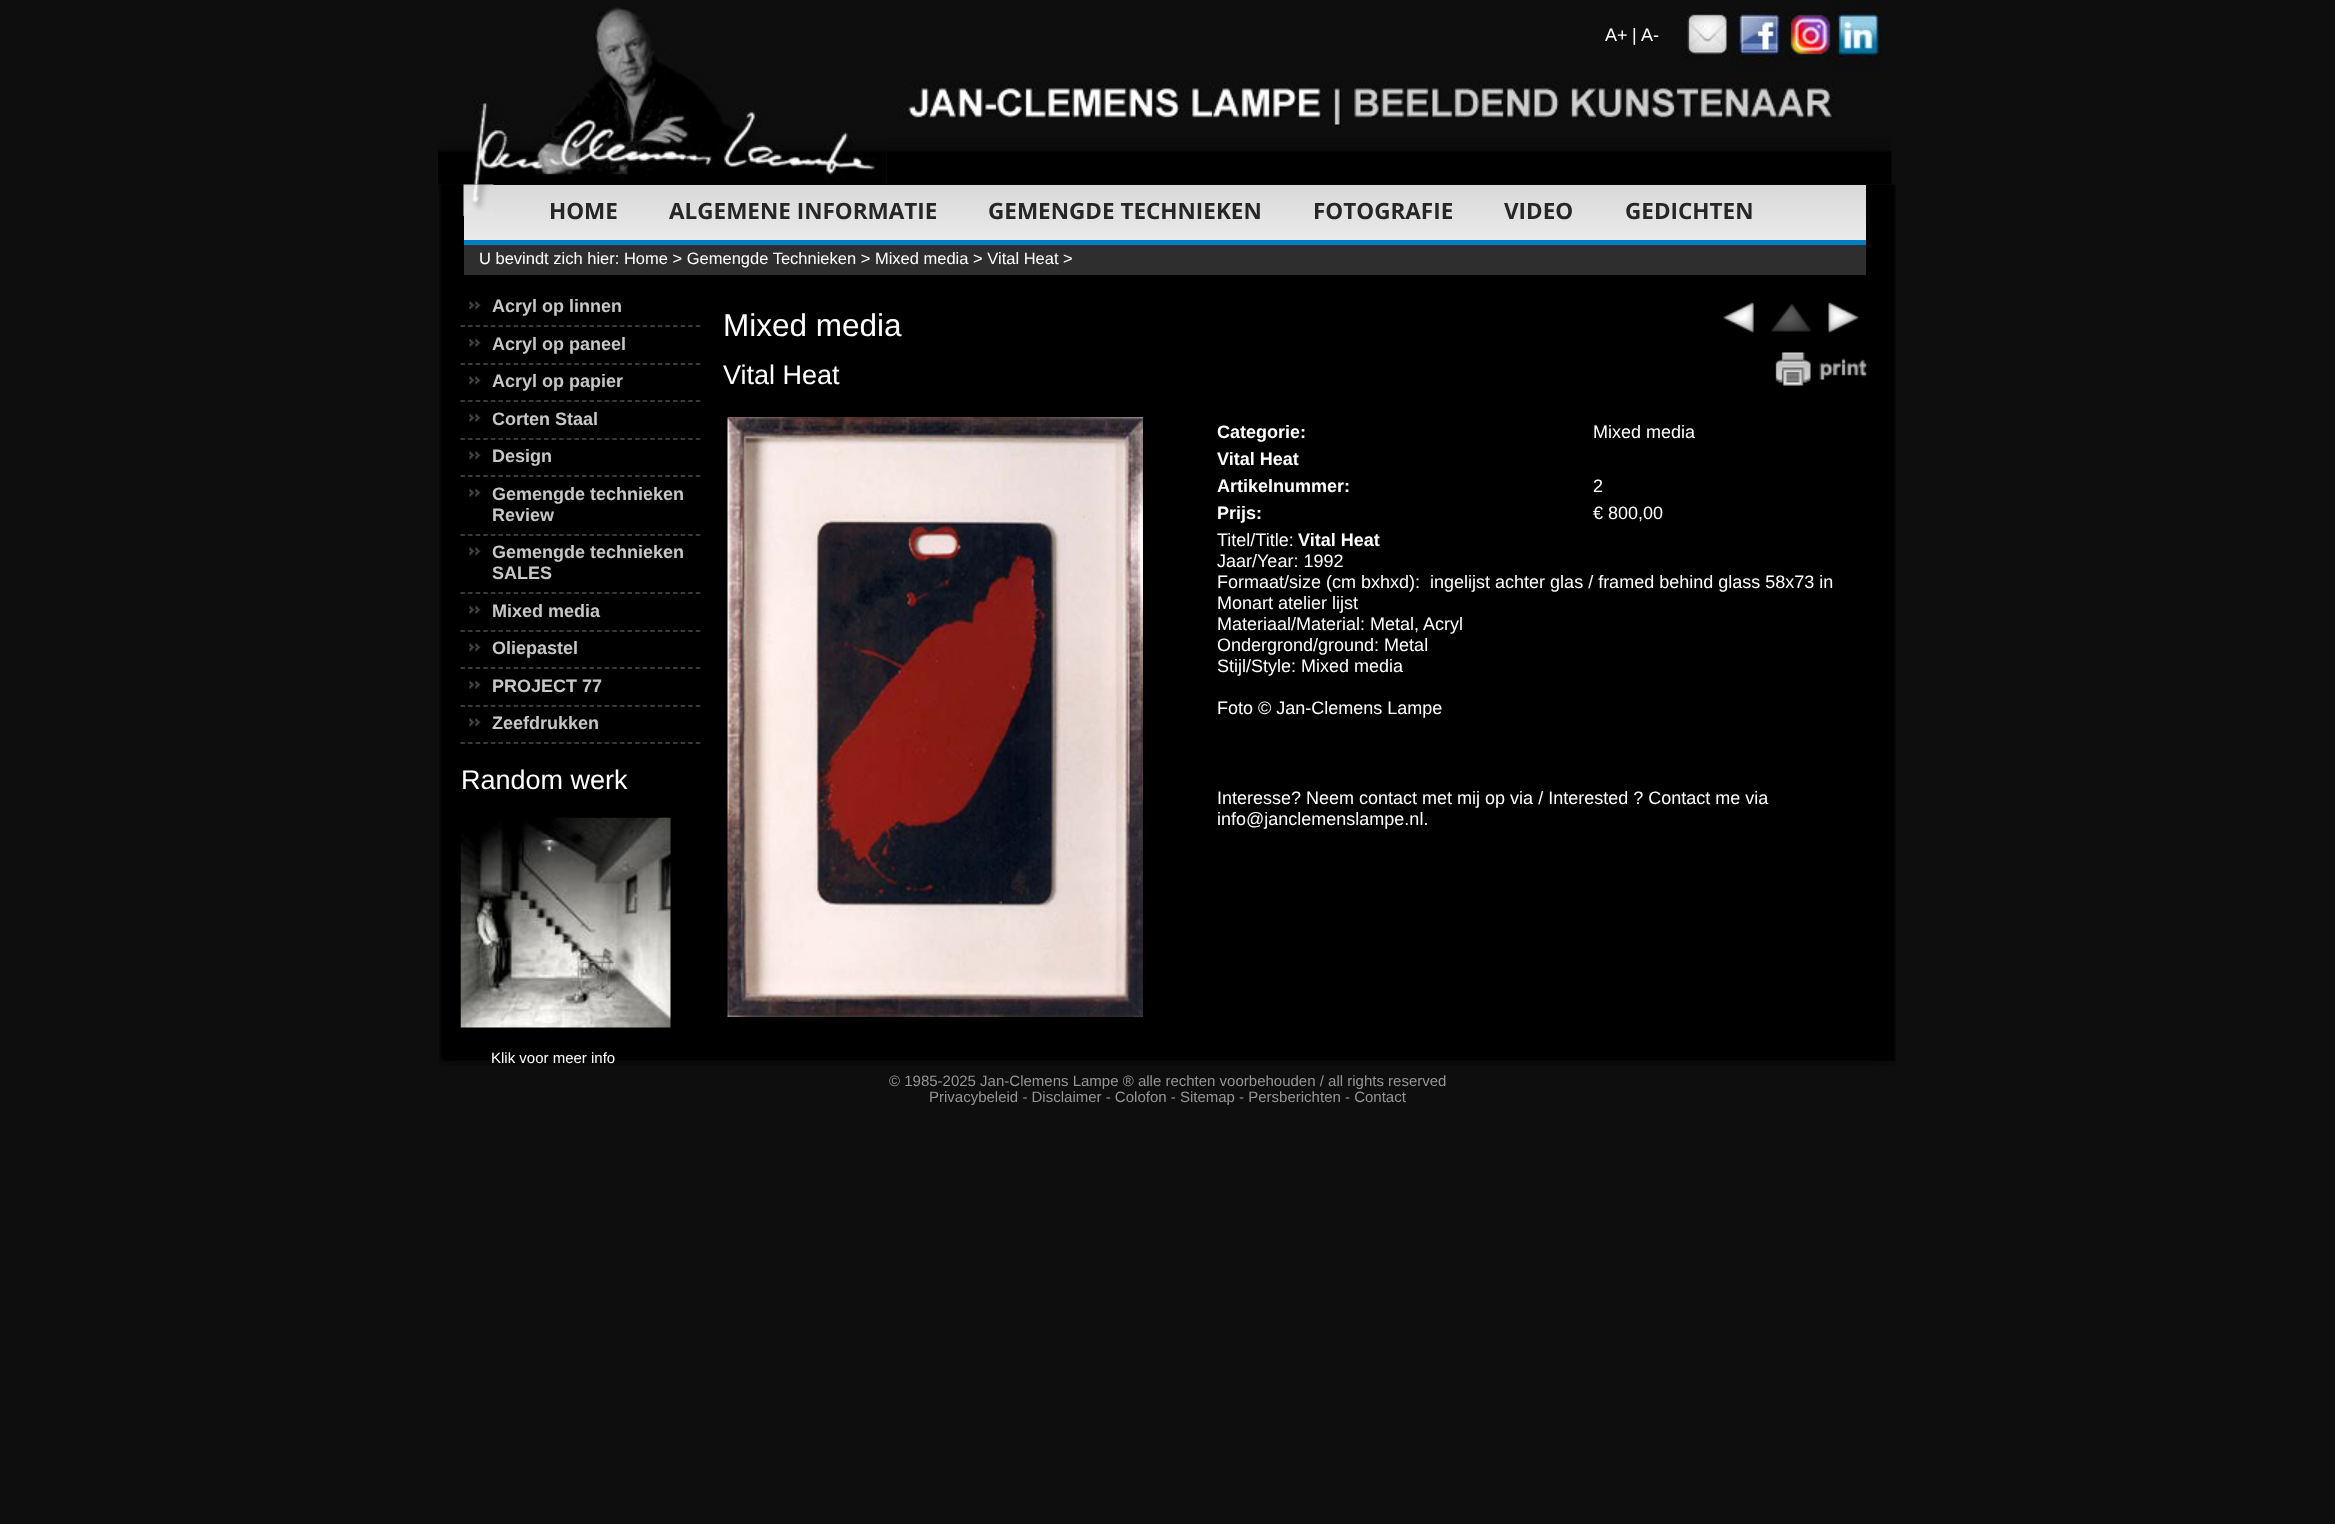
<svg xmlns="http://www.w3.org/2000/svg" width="2335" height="1524">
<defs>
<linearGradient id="g1" gradientUnits="userSpaceOnUse" x1="1165" y1="184" x2="1165" y2="240"><stop offset="0" stop-color="#d8d8d8"/><stop offset="1" stop-color="#eaeaea"/></linearGradient>
</defs>
<rect width="100%" height="100%" fill="#0e0e0e"/>
<image x="439" y="184" width="1457" height="874" href="media/7.png"/>
<image x="438" y="7" width="449" height="178" href="media/1.png"/>
<text x="1605" y="41" style="font-family:Liberation Sans;font-size:18px;fill:#fff">A+</text>
<text x="1632" y="41" style="font-family:Liberation Sans;font-size:18px;fill:#fff">|</text>
<text x="1641" y="41" style="font-family:Liberation Sans;font-size:18px;fill:#fff">A-</text>
<image x="1681" y="12" width="47" height="48" href="media/2.png"/>
<image x="1732" y="8" width="50" height="62" href="media/3.png"/>
<image x="1785" y="12" width="48" height="48" href="media/4.png"/>
<image x="1833" y="0" width="49" height="71" href="media/5.png"/>
<image x="887" y="82" width="1005" height="102" href="media/6.png"/>
<rect x="464" y="185" width="1402" height="55" fill="url(#g1)"/>
<image x="463" y="184" width="31" height="32" href="media/8.png"/>
<text x="549" y="219" style="font-family:Open Sans;font-size:22.5px;font-weight:bold;fill:#262626">HOME</text>
<text x="669" y="219" style="font-family:Open Sans;font-size:22.5px;font-weight:bold;fill:#262626">ALGEMENE INFORMATIE</text>
<text x="988" y="219" style="font-family:Open Sans;font-size:22.5px;font-weight:bold;fill:#262626">GEMENGDE TECHNIEKEN</text>
<text x="1313" y="219" style="font-family:Open Sans;font-size:22.5px;font-weight:bold;fill:#262626">FOTOGRAFIE</text>
<text x="1504" y="219" style="font-family:Open Sans;font-size:22.5px;font-weight:bold;fill:#262626">VIDEO</text>
<text x="1625" y="219" style="font-family:Open Sans;font-size:22.5px;font-weight:bold;fill:#262626">GEDICHTEN</text>
<rect x="464" y="245" width="1402" height="30" fill="#2e2e2e"/>
<rect x="464" y="240" width="1402" height="5" fill="#007cc3"/>
<text x="479" y="264" style="font-family:Liberation Sans;font-size:16.5px;fill:#fff">U bevindt zich hier: Home &gt; Gemengde Technieken &gt; Mixed media &gt; Vital Heat &gt;</text>
<image x="469" y="301" width="12" height="9" href="media/9.png"/>
<path d="M460.5 326h240" fill="none" stroke="#4d4c4c" stroke-width="1.5" stroke-dasharray="4.5 3.09"/>
<text x="492" y="312" style="font-family:Liberation Sans;font-size:18px;font-weight:bold;fill:#c7c7c7">Acryl op linnen</text>
<image x="469" y="338" width="12" height="9" href="media/10.png"/>
<path d="M460.5 364h240" fill="none" stroke="#4d4c4c" stroke-width="1.5" stroke-dasharray="4.5 3.09"/>
<text x="492" y="350" style="font-family:Liberation Sans;font-size:18px;font-weight:bold;fill:#c7c7c7">Acryl op paneel</text>
<image x="469" y="376" width="12" height="9" href="media/9.png"/>
<path d="M460.5 401h240" fill="none" stroke="#4d4c4c" stroke-width="1.5" stroke-dasharray="4.5 3.09"/>
<text x="492" y="387" style="font-family:Liberation Sans;font-size:18px;font-weight:bold;fill:#c7c7c7">Acryl op papier</text>
<image x="469" y="413" width="12" height="9" href="media/10.png"/>
<path d="M460.5 439h240" fill="none" stroke="#4d4c4c" stroke-width="1.5" stroke-dasharray="4.5 3.09"/>
<text x="492" y="425" style="font-family:Liberation Sans;font-size:18px;font-weight:bold;fill:#c7c7c7">Corten Staal</text>
<image x="469" y="451" width="12" height="9" href="media/9.png"/>
<path d="M460.5 476h240" fill="none" stroke="#4d4c4c" stroke-width="1.5" stroke-dasharray="4.5 3.09"/>
<text x="492" y="462" style="font-family:Liberation Sans;font-size:18px;font-weight:bold;fill:#c7c7c7">Design</text>
<image x="469" y="488" width="12" height="9" href="media/10.png"/>
<path d="M460.5 535h240" fill="none" stroke="#4d4c4c" stroke-width="1.5" stroke-dasharray="4.5 3.09"/>
<text x="492" y="500" style="font-family:Liberation Sans;font-size:18px;font-weight:bold;fill:#c7c7c7">Gemengde technieken</text>
<text x="492" y="521" style="font-family:Liberation Sans;font-size:18px;font-weight:bold;fill:#c7c7c7">Review</text>
<image x="469" y="547" width="12" height="9" href="media/9.png"/>
<path d="M460.5 593h240" fill="none" stroke="#4d4c4c" stroke-width="1.5" stroke-dasharray="4.5 3.09"/>
<text x="492" y="558" style="font-family:Liberation Sans;font-size:18px;font-weight:bold;fill:#c7c7c7">Gemengde technieken</text>
<text x="492" y="579" style="font-family:Liberation Sans;font-size:18px;font-weight:bold;fill:#c7c7c7">SALES</text>
<image x="469" y="605" width="12" height="9" href="media/10.png"/>
<path d="M460.5 631h240" fill="none" stroke="#4d4c4c" stroke-width="1.5" stroke-dasharray="4.5 3.09"/>
<text x="492" y="617" style="font-family:Liberation Sans;font-size:18px;font-weight:bold;fill:#c7c7c7">Mixed media</text>
<image x="469" y="643" width="12" height="9" href="media/9.png"/>
<path d="M460.5 668h240" fill="none" stroke="#4d4c4c" stroke-width="1.5" stroke-dasharray="4.5 3.09"/>
<text x="492" y="654" style="font-family:Liberation Sans;font-size:18px;font-weight:bold;fill:#c7c7c7">Oliepastel</text>
<image x="469" y="680" width="12" height="9" href="media/10.png"/>
<path d="M460.5 706h240" fill="none" stroke="#4d4c4c" stroke-width="1.5" stroke-dasharray="4.5 3.09"/>
<text x="492" y="692" style="font-family:Liberation Sans;font-size:18px;font-weight:bold;fill:#c7c7c7">PROJECT 77</text>
<image x="469" y="718" width="12" height="9" href="media/9.png"/>
<path d="M460.5 743h240" fill="none" stroke="#4d4c4c" stroke-width="1.5" stroke-dasharray="4.5 3.09"/>
<text x="492" y="729" style="font-family:Liberation Sans;font-size:18px;font-weight:bold;fill:#c7c7c7">Zeefdrukken</text>
<text x="461" y="789" style="font-family:Liberation Sans;font-size:27px;fill:#fff">Random werk</text>
<image x="460" y="817" width="211" height="211" href="media/11.png"/>
<image x="439" y="1057" width="1457" height="9" href="media/17.png"/>
<text x="491" y="1063" style="font-family:Liberation Sans;font-size:15px;fill:#fff">Klik voor meer info</text>
<text x="723" y="336" style="font-family:Liberation Sans;font-size:31.5px;fill:#fff">Mixed media</text>
<image x="1723" y="302" width="31" height="32" href="media/12.png"/>
<image x="1771" y="304" width="40" height="28" href="media/13.png"/>
<image x="1828" y="302" width="31" height="32" href="media/14.png"/>
<image x="1775" y="352" width="92" height="34" href="media/15.png"/>
<text x="723" y="384" style="font-family:Liberation Sans;font-size:27px;fill:#fff">Vital Heat</text>
<image x="727" y="417" width="416" height="600" href="media/16.png"/>
<text x="1217" y="438" style="font-family:Liberation Sans;font-size:18px;font-weight:bold;fill:#fff">Categorie:</text>
<text x="1593" y="438" style="font-family:Liberation Sans;font-size:18px;fill:#fff">Mixed media</text>
<text x="1217" y="465" style="font-family:Liberation Sans;font-size:18px;font-weight:bold;fill:#fff">Vital Heat</text>
<text x="1217" y="492" style="font-family:Liberation Sans;font-size:18px;font-weight:bold;fill:#fff">Artikelnummer:</text>
<text x="1593" y="492" style="font-family:Liberation Sans;font-size:18px;fill:#fff">2</text>
<text x="1217" y="519" style="font-family:Liberation Sans;font-size:18px;font-weight:bold;fill:#fff">Prijs:</text>
<text x="1593" y="519" style="font-family:Liberation Sans;font-size:18px;fill:#fff">€ 800,00</text>
<text x="1217" y="546" style="font-family:Liberation Sans;font-size:18px;fill:#fff">Titel/Title:</text>
<text x="1298" y="546" style="font-family:Liberation Sans;font-size:18px;font-weight:bold;fill:#fff">Vital Heat</text>
<text x="1217" y="567" style="font-family:Liberation Sans;font-size:18px;fill:#fff">Jaar/Year: 1992</text>
<text x="1217" y="588" style="font-family:Liberation Sans;font-size:18px;fill:#fff" xml:space="preserve">Formaat/size (cm bxhxd):  ingelijst achter glas / framed behind glass 58x73 in</text>
<text x="1217" y="609" style="font-family:Liberation Sans;font-size:18px;fill:#fff">Monart atelier lijst</text>
<text x="1217" y="630" style="font-family:Liberation Sans;font-size:18px;fill:#fff">Materiaal/Material: Metal, Acryl</text>
<text x="1217" y="651" style="font-family:Liberation Sans;font-size:18px;fill:#fff">Ondergrond/ground: Metal</text>
<text x="1217" y="672" style="font-family:Liberation Sans;font-size:18px;fill:#fff">Stijl/Style: Mixed media</text>
<text x="1217" y="714" style="font-family:Liberation Sans;font-size:18px;fill:#fff">Foto © Jan-Clemens Lampe</text>
<text x="1217" y="804" style="font-family:Liberation Sans;font-size:18px;fill:#fff">Interesse? Neem contact met mij op via / Interested ? Contact me via</text>
<text x="1217" y="825" style="font-family:Liberation Sans;font-size:18px;fill:#fff">info@janclemenslampe.nl.</text>
<text x="889" y="1086" style="font-family:Liberation Sans;font-size:15px;fill:#959595">© 1985-2025 Jan-Clemens Lampe ® alle rechten voorbehouden / all rights reserved</text>
<text x="929" y="1102" style="font-family:Liberation Sans;font-size:15px;fill:#959595">Privacybeleid - Disclaimer - Colofon - Sitemap - Persberichten - Contact</text>
</svg>
